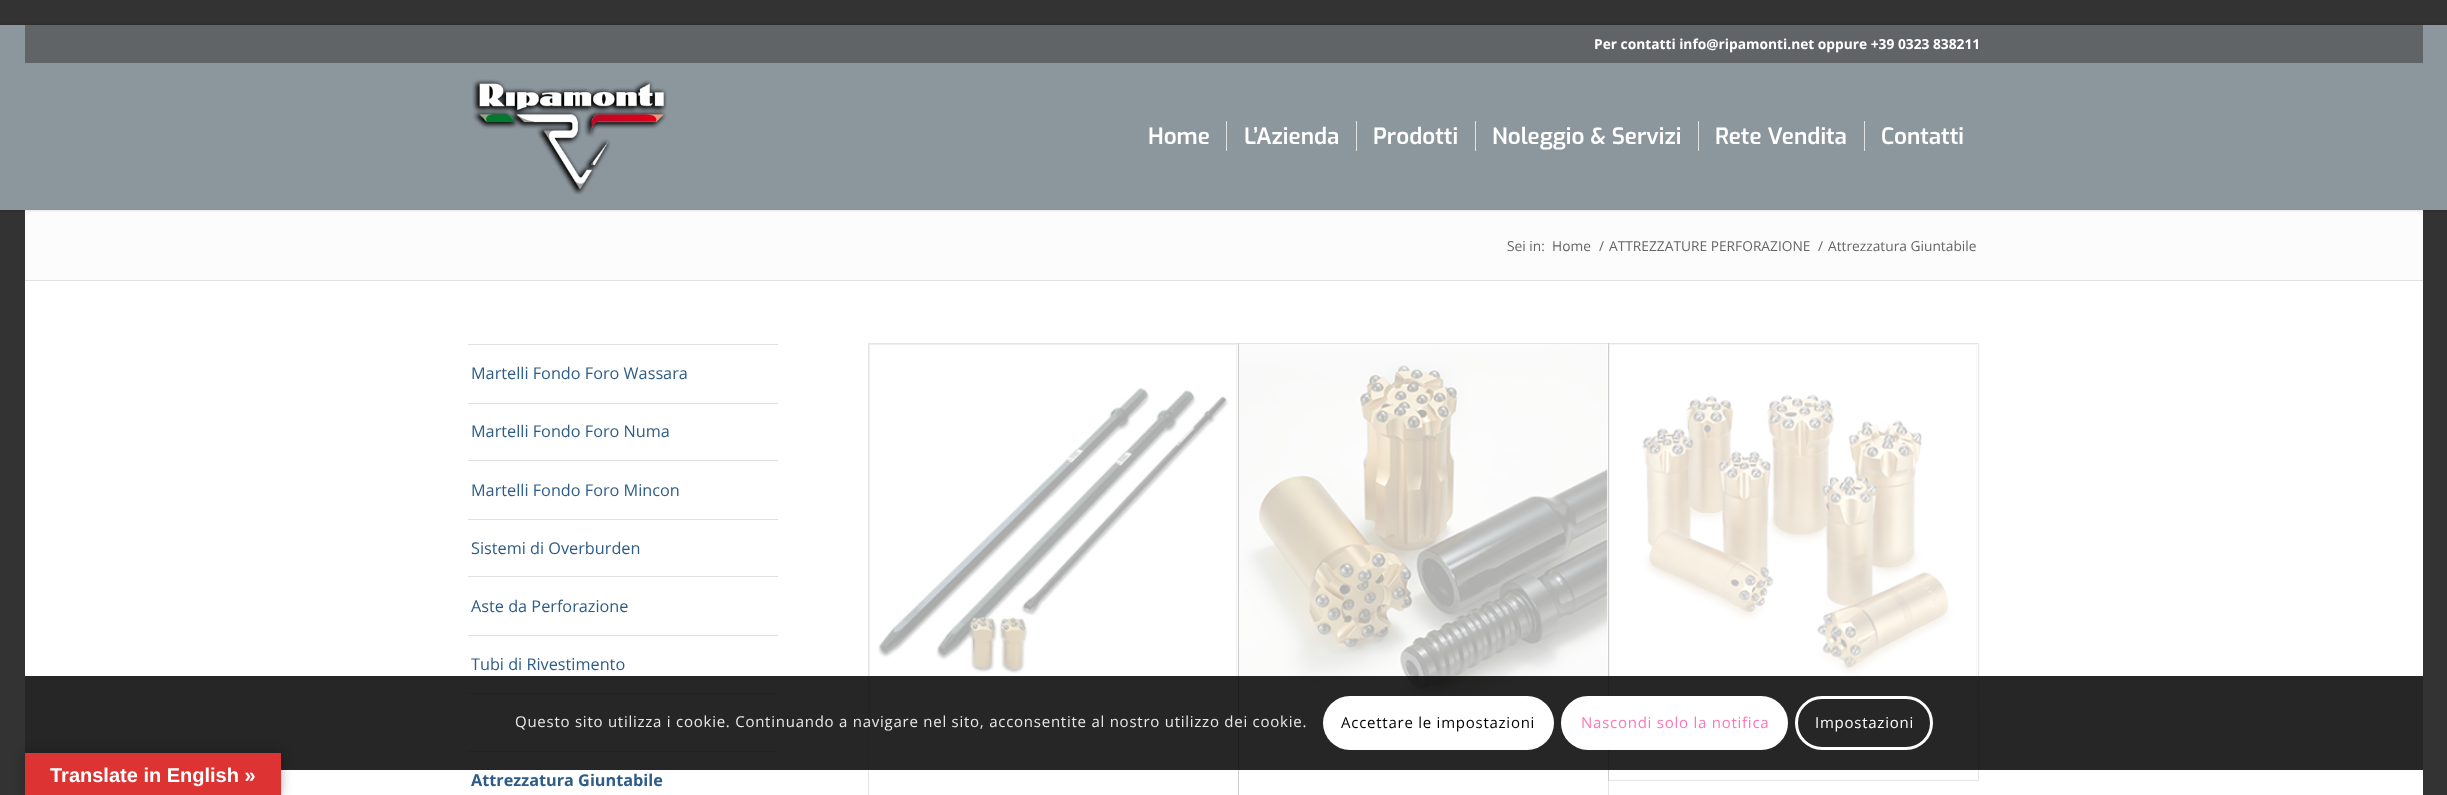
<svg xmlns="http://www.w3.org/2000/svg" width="2447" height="795">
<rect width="100%" height="100%" fill="#333"/>
<rect x="25" y="210" width="2398" height="70" fill="#fcfcfc"/>
<rect x="-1" y="24" width="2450" height="187" fill="#0000001a" filter="blur(1px)"/>
<rect y="25" width="2447" height="185" fill="#8c969d"/>
<rect x="25" y="25" width="2398" height="38" fill="#606466"/>
<text x="1594" y="49" style="font-family:Open Sans;font-size:13.75px;font-weight:bold;fill:#fff">Per contatti info@ripamonti.net oppure +39 0323 838211</text>
<image x="472" y="79" width="195" height="116" href="media/1.png"/>
<text x="1148" y="144" style="font-family:Exo;font-size:22.5px;font-weight:600;fill:#fff">Home</text>
<text x="1244" y="144" style="font-family:Exo;font-size:22.5px;font-weight:600;fill:#fff">L’Azienda</text>
<rect x="1226" y="121" width="1" height="30" fill="#e1e1e1"/>
<text x="1373" y="144" style="font-family:Exo;font-size:22.5px;font-weight:600;fill:#fff">Prodotti</text>
<rect x="1356" y="121" width="1" height="30" fill="#e1e1e1"/>
<text x="1492" y="144" style="font-family:Exo;font-size:22.5px;font-weight:600;fill:#fff">Noleggio &amp; Servizi</text>
<rect x="1475" y="121" width="1" height="30" fill="#e1e1e1"/>
<text x="1715" y="144" style="font-family:Exo;font-size:22.5px;font-weight:600;fill:#fff">Rete Vendita</text>
<rect x="1698" y="121" width="1" height="30" fill="#e1e1e1"/>
<text x="1881" y="144" style="font-family:Exo;font-size:22.5px;font-weight:600;fill:#fff">Contatti</text>
<rect x="1864" y="121" width="1" height="30" fill="#e1e1e1"/>
<text x="1507" y="251" style="font-family:Open Sans;font-size:13.75px;fill:#666">Sei in:</text>
<text x="1552" y="251" style="font-family:Open Sans;font-size:13.75px;fill:#666">Home</text>
<text x="1599" y="251" style="font-family:Open Sans;font-size:13.75px;fill:#666">/</text>
<text x="1609" y="251" style="font-family:Open Sans;font-size:13.75px;fill:#666">ATTREZZATURE PERFORAZIONE</text>
<text x="1818" y="251" style="font-family:Open Sans;font-size:13.75px;fill:#666">/</text>
<text x="1828" y="251" style="font-family:Open Sans;font-size:13.75px;fill:#666">Attrezzatura Giuntabile</text>
<rect x="25" y="281" width="2398" height="514" fill="#fff"/>
<rect x="25" y="280" width="2398" height="1" fill="#e1e1e1"/>
<rect x="468" y="344" width="310" height="1" fill="#e1e1e1"/>
<rect x="468" y="403" width="310" height="1" fill="#e1e1e1"/>
<text x="471" y="379" style="font-family:Open Sans;font-size:16.25px;fill:#2d5c88">Martelli Fondo Foro Wassara</text>
<rect x="468" y="460" width="310" height="1" fill="#e1e1e1"/>
<text x="471" y="437" style="font-family:Open Sans;font-size:16.25px;fill:#2d5c88">Martelli Fondo Foro Numa</text>
<rect x="468" y="519" width="310" height="1" fill="#e1e1e1"/>
<text x="471" y="496" style="font-family:Open Sans;font-size:16.25px;fill:#2d5c88">Martelli Fondo Foro Mincon</text>
<rect x="468" y="576" width="310" height="1" fill="#e1e1e1"/>
<text x="471" y="554" style="font-family:Open Sans;font-size:16.25px;fill:#2d5c88">Sistemi di Overburden</text>
<rect x="468" y="635" width="310" height="1" fill="#e1e1e1"/>
<text x="471" y="612" style="font-family:Open Sans;font-size:16.25px;fill:#2d5c88">Aste da Perforazione</text>
<rect x="468" y="693" width="310" height="1" fill="#e1e1e1"/>
<text x="471" y="670" style="font-family:Open Sans;font-size:16.25px;fill:#2d5c88">Tubi di Rivestimento</text>
<rect x="468" y="751" width="310" height="1" fill="#e1e1e1"/>
<text x="471" y="786" style="font-family:Open Sans;font-size:16.25px;font-weight:bold;fill:#2d5c88">Attrezzatura Giuntabile</text>
<rect x="868.5" y="343.5" width="370" height="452" fill="none" stroke="#e6e6e6"/>
<image x="869" y="344" width="369" height="369" href="media/2.png"/>
<path d="M1053 705l8.5 9l-8.5 9l-9-9z" fill="#fff"/>
<rect x="1238.5" y="343.5" width="370" height="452" fill="none" stroke="#0000001a"/>
<image x="1239" y="344" width="369" height="365" href="media/3.png"/>
<rect x="1608.5" y="343.5" width="370" height="437" fill="none" stroke="#0000001a"/>
<image x="1609" y="344" width="368" height="368" href="media/4.png"/>
<path d="M1793 705l8.5 9l-8.5 9l-9-9z" fill="#fff"/>
<rect x="25" y="676" width="2398" height="94" fill="#000000d9"/>
<text x="515" y="727" style="font-family:Open Sans;font-size:15px;letter-spacing:0.75px;fill:#e9e9e9">Questo sito utilizza i cookie. Continuando a navigare nel sito, acconsentite al nostro utilizzo dei cookie.</text>
<rect x="1323" y="696" width="231" height="54" rx="27" fill="#fff"/>
<text x="1341" y="728" style="font-family:Open Sans;font-size:15px;letter-spacing:0.75px;fill:#000">Accettare le impostazioni</text>
<rect x="1562.5" y="697.5" width="224" height="51" rx="25.5" fill="#fff" stroke="#fff" stroke-width="3"/>
<text x="1581" y="728" style="font-family:Open Sans;font-size:15px;letter-spacing:0.75px;fill:#ff75b5">Nascondi solo la notifica</text>
<rect x="1796.5" y="697.5" width="135" height="51" rx="25.5" fill="none" stroke="#fff" stroke-width="3"/>
<text x="1815" y="728" style="font-family:Open Sans;font-size:15px;letter-spacing:0.75px;fill:#fff">Impostazioni</text>
<rect x="25" y="753" width="256" height="42" fill="#0000004d" filter="blur(5.5px)"/>
<rect x="25" y="753" width="256" height="42" fill="#d33"/>
<text x="50" y="782" style="font-family:Liberation Sans;font-size:20px;font-weight:bold;fill:#fff">Translate in English »</text>
</svg>
